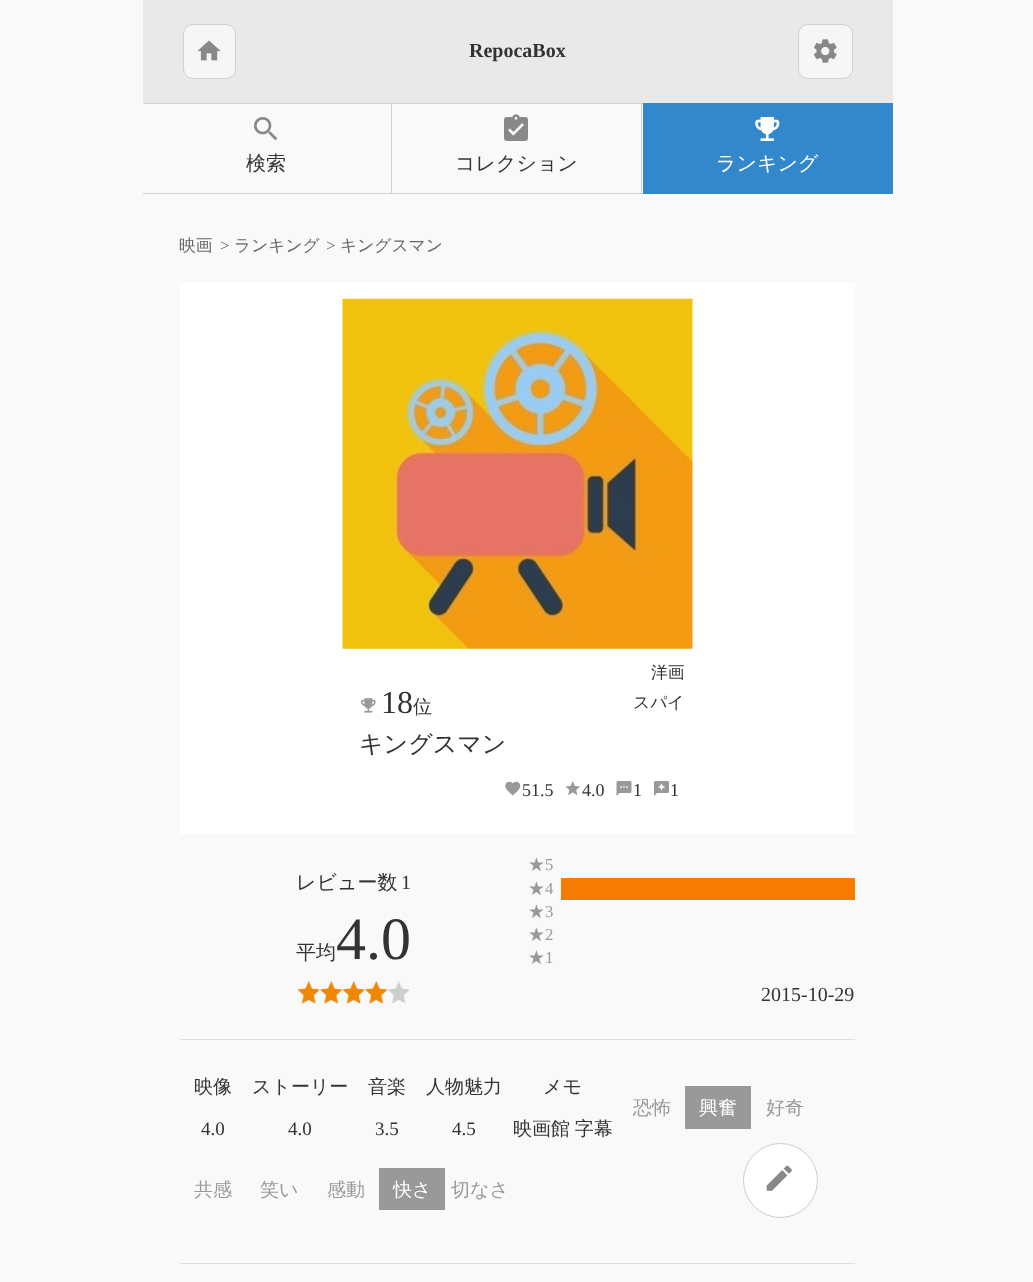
<svg xmlns="http://www.w3.org/2000/svg" width="1033" height="1282">
<rect width="100%" height="100%" fill="#f9f9f9"/>
<rect x="143" width="750" height="103" fill="#e9e9e9"/>
<rect x="183.5" y="24.5" width="52" height="54" rx="9.5" fill="#f6f6f6" stroke="#d1d1d1"/>
<image x="197" y="40" width="24" height="21" href="media/1.png"/>
<text x="469" y="57" style="font-family:Liberation Serif;font-size:20px;font-weight:bold;fill:#333">RepocaBox</text>
<rect x="798.5" y="24.5" width="54" height="54" rx="9.5" fill="#f6f6f6" stroke="#d1d1d1"/>
<image x="813" y="39" width="24" height="24" href="media/2.png"/>
<rect x="143" y="103" width="500" height="1" fill="#d1d1d1"/>
<rect x="391" y="103" width="1" height="91" fill="#d1d1d1"/>
<rect x="143" y="193" width="250" height="1" fill="#d1d1d1"/>
<image x="254" y="117" width="24" height="24" href="media/3.png"/>
<text x="246" y="170" style="font-family:WenQuanYi Zen Hei;font-size:20px;font-weight:500;fill:#333">検索</text>
<rect x="641" y="103" width="1" height="91" fill="#d1d1d1"/>
<rect x="393" y="193" width="250" height="1" fill="#d1d1d1"/>
<image x="504" y="114" width="24" height="27" href="media/4.png"/>
<text x="455" y="170" style="font-family:WenQuanYi Zen Hei;font-size:20px;font-weight:500;fill:#333">コレクション</text>
<rect x="643" y="103" width="250" height="91" fill="#38c"/>
<image x="755" y="117" width="25" height="24" href="media/5.png"/>
<text x="716" y="170" style="font-family:WenQuanYi Zen Hei;font-size:20px;font-weight:500;fill:#fff">ランキング</text>
<text x="179" y="251" style="font-family:WenQuanYi Zen Hei;font-size:16.75px;font-weight:500;fill:#666">映画</text>
<text x="220" y="251" style="font-family:Liberation Serif;font-size:16.75px;fill:#666">&gt;</text>
<text x="234" y="251" style="font-family:WenQuanYi Zen Hei;font-size:16.75px;font-weight:500;fill:#666">ランキング</text>
<text x="326" y="251" style="font-family:Liberation Serif;font-size:16.75px;fill:#666">&gt;</text>
<text x="340" y="251" style="font-family:WenQuanYi Zen Hei;font-size:16.75px;font-weight:500;fill:#666">キングスマン</text>
<rect x="180" y="283" width="675" height="551" fill="#fff"/>
<image x="342" y="298" width="351" height="351" href="media/6.png"/>
<image x="361" y="698" width="15" height="15" href="media/7.png"/>
<text x="381" y="713" style="font-family:Liberation Serif;font-size:32px;fill:#333">18</text>
<text x="413" y="713" style="font-family:WenQuanYi Zen Hei;font-size:19px;font-weight:500;fill:#333">位</text>
<text x="651" y="678" style="font-family:WenQuanYi Zen Hei;font-size:16.75px;font-weight:500;fill:#333">洋画</text>
<text x="633" y="708" style="font-family:WenQuanYi Zen Hei;font-size:16.75px;font-weight:500;fill:#333">スパイ</text>
<text x="359" y="752" style="font-family:WenQuanYi Zen Hei;font-size:24px;font-weight:500;fill:#333">キングスマン</text>
<image x="505" y="781" width="16" height="15" href="media/8.png"/>
<text x="522" y="796" style="font-family:Liberation Serif;font-size:18px;fill:#333">51.5</text>
<image x="565" y="781" width="15" height="15" href="media/9.png"/>
<text x="582" y="796" style="font-family:Liberation Serif;font-size:18px;fill:#333">4.0</text>
<image x="616" y="781" width="16" height="15" href="media/10.png"/>
<text x="633" y="796" style="font-family:Liberation Serif;font-size:18px;fill:#333">1</text>
<image x="654" y="781" width="15" height="15" href="media/11.png"/>
<text x="670" y="796" style="font-family:Liberation Serif;font-size:18px;fill:#333">1</text>
<text x="296" y="889" style="font-family:WenQuanYi Zen Hei;font-size:20px;font-weight:500;fill:#333">レビュー数</text>
<text x="401" y="889" style="font-family:Liberation Serif;font-size:20px;fill:#333">1</text>
<text x="296" y="959" style="font-family:WenQuanYi Zen Hei;font-size:20px;font-weight:500;fill:#333">平均</text>
<text x="336" y="959" style="font-family:Liberation Serif;font-size:60px;fill:#333">4.0</text>
<image x="297" y="981" width="113" height="23" href="media/12.png"/>
<image x="297" y="981" width="91" height="23" href="media/13.png"/>
<text x="528" y="870" style="font-family:WenQuanYi Zen Hei;font-size:16.75px;font-weight:500;fill:#999">★</text>
<text x="545" y="870" style="font-family:Liberation Serif;font-size:16.75px;fill:#999">5</text>
<text x="528" y="894" style="font-family:WenQuanYi Zen Hei;font-size:16.75px;font-weight:500;fill:#999">★</text>
<text x="545" y="894" style="font-family:Liberation Serif;font-size:16.75px;fill:#999">4</text>
<rect x="561" y="878" width="294" height="22" fill="#f57c00"/>
<text x="528" y="917" style="font-family:WenQuanYi Zen Hei;font-size:16.75px;font-weight:500;fill:#999">★</text>
<text x="545" y="917" style="font-family:Liberation Serif;font-size:16.75px;fill:#999">3</text>
<text x="528" y="940" style="font-family:WenQuanYi Zen Hei;font-size:16.75px;font-weight:500;fill:#999">★</text>
<text x="545" y="940" style="font-family:Liberation Serif;font-size:16.75px;fill:#999">2</text>
<text x="528" y="963" style="font-family:WenQuanYi Zen Hei;font-size:16.75px;font-weight:500;fill:#999">★</text>
<text x="545" y="963" style="font-family:Liberation Serif;font-size:16.75px;fill:#999">1</text>
<text x="761" y="1001" style="font-family:Liberation Serif;font-size:20px;fill:#333">2015-10-29</text>
<rect x="180" y="1039" width="675" height="1" fill="#ddd"/>
<text x="194" y="1093" style="font-family:WenQuanYi Zen Hei;font-size:19px;font-weight:500;fill:#333">映像</text>
<text x="201" y="1135" style="font-family:Liberation Serif;font-size:19px;fill:#333">4.0</text>
<text x="252" y="1093" style="font-family:WenQuanYi Zen Hei;font-size:19px;font-weight:500;fill:#333">ストーリー</text>
<text x="288" y="1135" style="font-family:Liberation Serif;font-size:19px;fill:#333">4.0</text>
<text x="368" y="1093" style="font-family:WenQuanYi Zen Hei;font-size:19px;font-weight:500;fill:#333">音楽</text>
<text x="375" y="1135" style="font-family:Liberation Serif;font-size:19px;fill:#333">3.5</text>
<text x="426" y="1093" style="font-family:WenQuanYi Zen Hei;font-size:19px;font-weight:500;fill:#333">人物魅力</text>
<text x="452" y="1135" style="font-family:Liberation Serif;font-size:19px;fill:#333">4.5</text>
<text x="543" y="1093" style="font-family:WenQuanYi Zen Hei;font-size:19px;font-weight:500;fill:#333">メモ</text>
<text x="513" y="1135" word-spacing="-1" style="font-family:WenQuanYi Zen Hei;font-size:19px;font-weight:500;fill:#333">映画館 字幕</text>
<text x="633" y="1114" style="font-family:WenQuanYi Zen Hei;font-size:19px;font-weight:500;fill:#999">恐怖</text>
<rect x="685" y="1086" width="66" height="43" fill="#999"/>
<text x="699" y="1114" style="font-family:WenQuanYi Zen Hei;font-size:19px;font-weight:500;fill:#fff">興奮</text>
<text x="766" y="1114" style="font-family:WenQuanYi Zen Hei;font-size:19px;font-weight:500;fill:#999">好奇</text>
<text x="194" y="1196" style="font-family:WenQuanYi Zen Hei;font-size:19px;font-weight:500;fill:#999">共感</text>
<text x="260" y="1196" style="font-family:WenQuanYi Zen Hei;font-size:19px;font-weight:500;fill:#999">笑い</text>
<text x="327" y="1196" style="font-family:WenQuanYi Zen Hei;font-size:19px;font-weight:500;fill:#999">感動</text>
<rect x="379" y="1168" width="66" height="42" fill="#999"/>
<text x="393" y="1196" style="font-family:WenQuanYi Zen Hei;font-size:19px;font-weight:500;fill:#fff">快さ</text>
<text x="451" y="1196" style="font-family:WenQuanYi Zen Hei;font-size:19px;font-weight:500;fill:#999">切なさ</text>
<rect x="180" y="1263" width="675" height="1" fill="#ddd"/>
<circle cx="780.5" cy="1180.5" r="37" fill="#fff" stroke="#ccc"/>
<image x="766" y="1165" width="26" height="26" href="media/14.png"/>
</svg>
